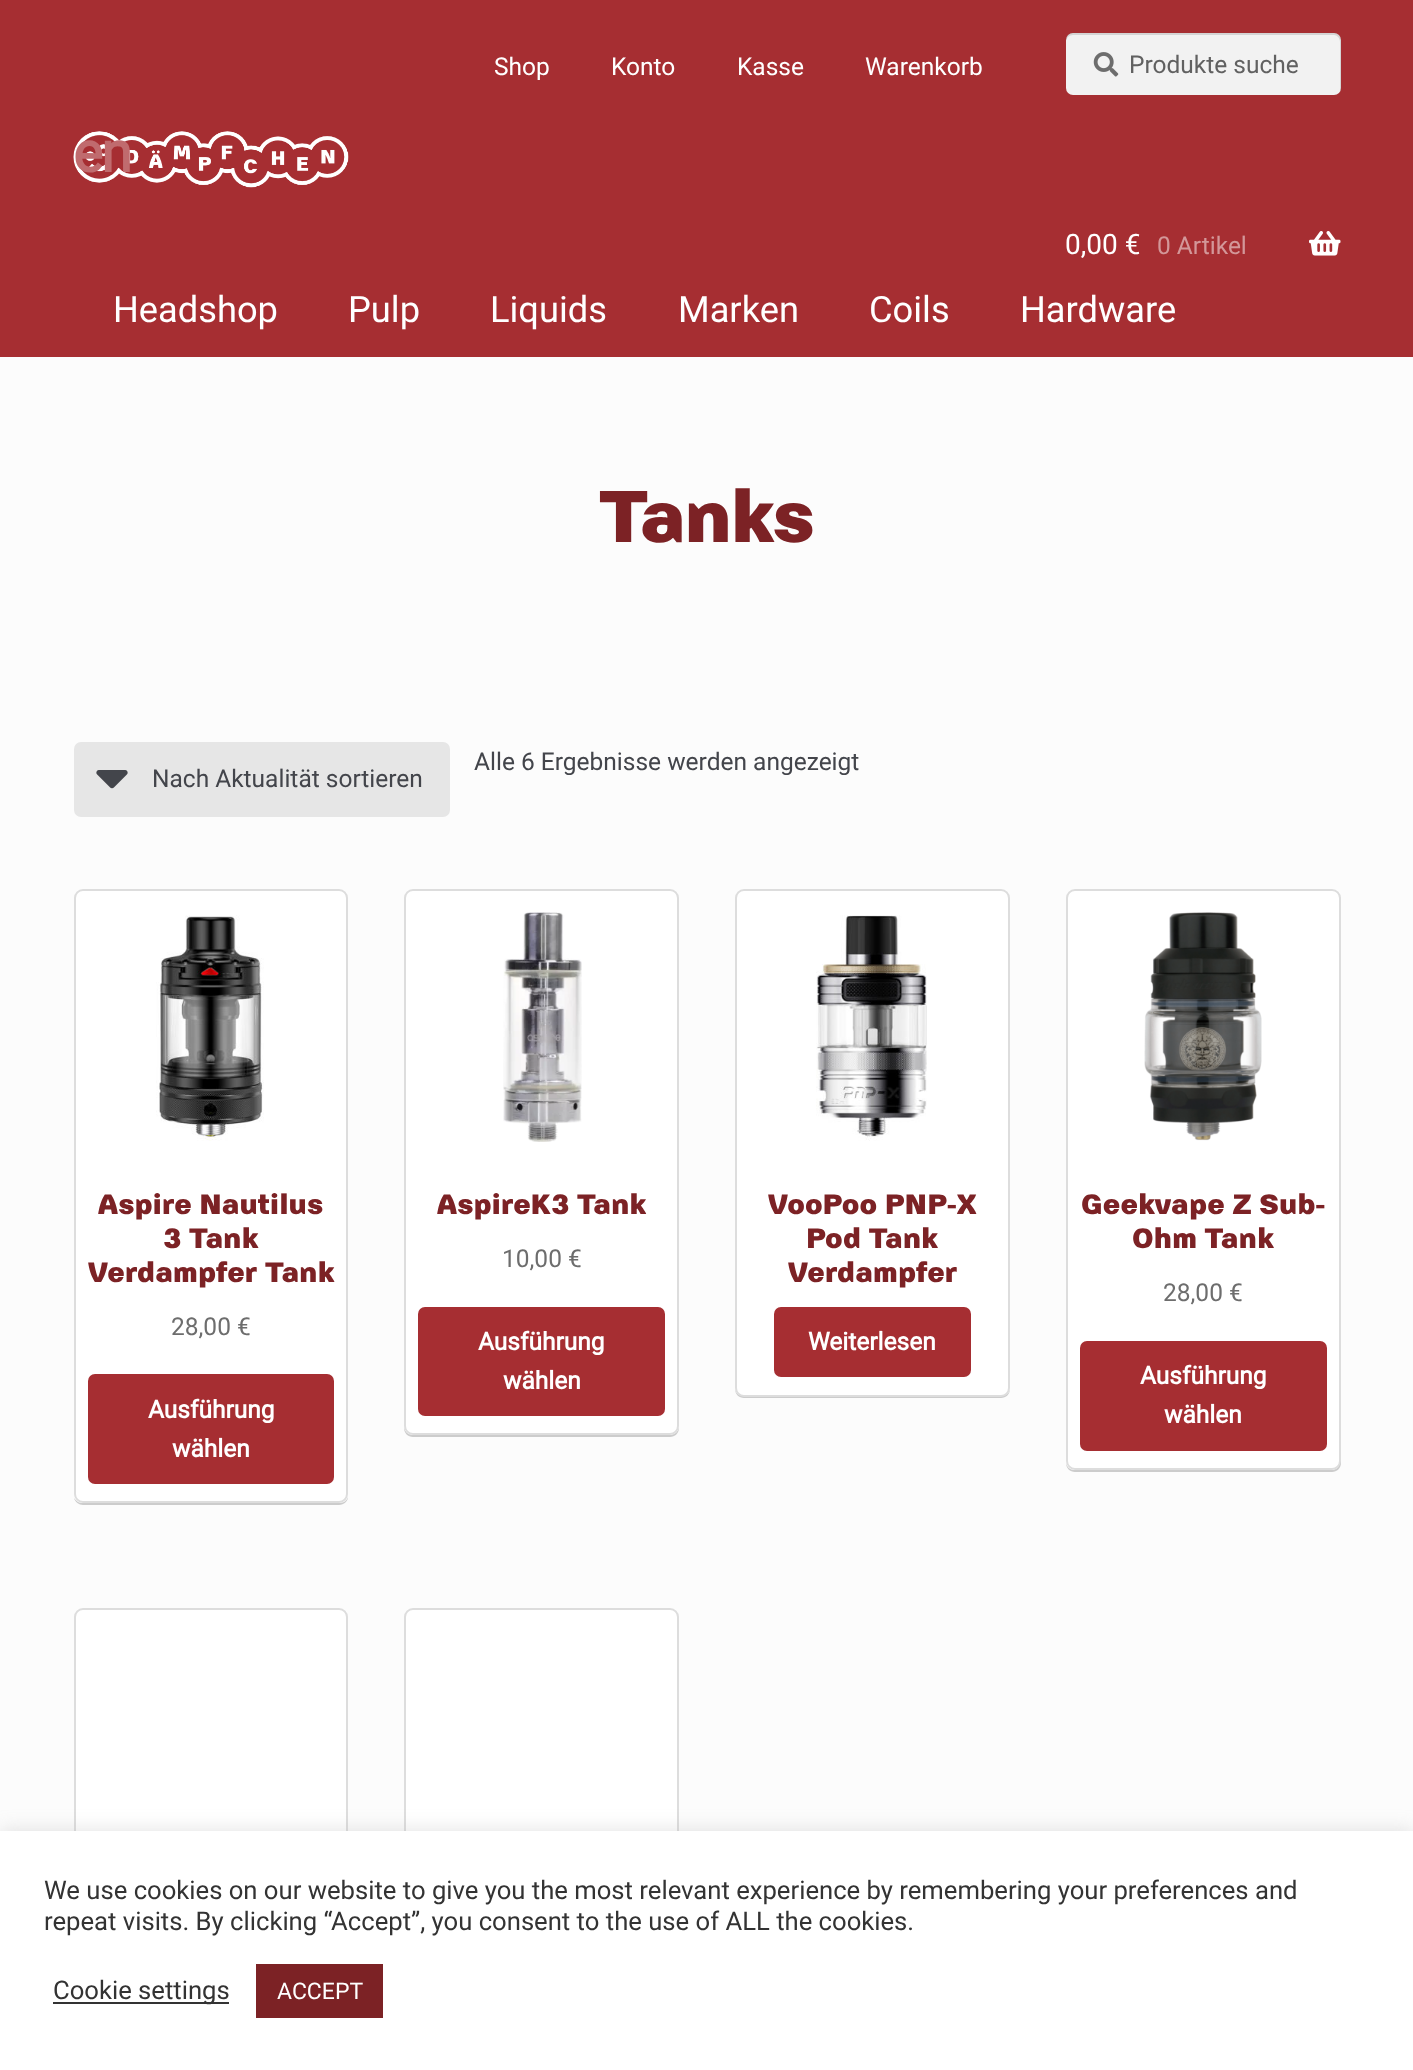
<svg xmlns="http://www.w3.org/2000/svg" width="1413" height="2070">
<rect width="100%" height="100%" fill="#fcfcfc"/>
<rect width="1413" height="357" fill="#a62e32"/>
<text x="494" y="75" style="font-family:Roboto;font-size:24.5px;fill:#fff">Shop</text>
<text x="611" y="75" style="font-family:Roboto;font-size:24.5px;fill:#fff">Konto</text>
<text x="737" y="75" style="font-family:Roboto;font-size:24.5px;fill:#fff">Kasse</text>
<text x="865" y="75" style="font-family:Roboto;font-size:24.5px;fill:#fff">Warenkorb</text>
<rect x="1066" y="33" width="275" height="62" rx="7" fill="#f2f2f2"/>
<path d="M1073 35h261c3 0 6 3 6 7v47c0 2 0 3-1 4c1-1 2-3 2-5v-48c0-4-3-7-7-7h-261c-4 0-7 3-7 7v2c0-4 3-7 7-7z" fill="#0000001f"/>
<image x="1093" y="52" width="26" height="25" href="media/1.png"/>
<text x="1129" y="73" style="font-family:Roboto;font-size:24.5px;fill:#616161">Produkte suche</text>
<image x="73" y="131" width="276" height="57" href="media/2.png"/>
<text x="73" y="172" style="font-family:Roboto;font-size:56px;font-weight:bold;letter-spacing:-1.75px;fill:#c06b6e">en</text>
<text x="1065" y="254" style="font-family:Roboto;font-size:28px;fill:#fff">0,00 €</text>
<text x="1157" y="254" style="font-family:Roboto;font-size:24.5px;fill:#d39799">0 Artikel</text>
<image x="1309" y="231" width="32" height="25" href="media/3.png"/>
<text x="113" y="322" style="font-family:Roboto;font-size:36.25px;fill:#fff">Headshop</text>
<text x="348" y="322" style="font-family:Roboto;font-size:36.25px;fill:#fff">Pulp</text>
<text x="490" y="322" style="font-family:Roboto;font-size:36.25px;fill:#fff">Liquids</text>
<text x="678" y="322" style="font-family:Roboto;font-size:36.25px;fill:#fff">Marken</text>
<text x="869" y="322" style="font-family:Roboto;font-size:36.25px;fill:#fff">Coils</text>
<text x="1020" y="322" style="font-family:Roboto;font-size:36.25px;fill:#fff">Hardware</text>
<text x="599" y="542" style="font-family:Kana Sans;font-size:73px;font-weight:900;letter-spacing:-1.75px;fill:#7c2225">Tanks</text>
<text x="474" y="770" style="font-family:Roboto;font-size:24.5px;fill:#43454b">Alle 6 Ergebnisse werden angezeigt</text>
<rect x="74" y="742" width="376" height="75" rx="7" fill="#e6e6e6"/>
<image x="96" y="770" width="32" height="19" href="media/4.png"/>
<text x="152" y="787" style="font-family:Roboto;font-size:24.5px;fill:#43454b">Nach Aktualität sortieren</text>
<path d="M74 1498c1 4 5 7 9 7h256c5 0 9-4 9-8c-1 3-4 6-8 6h-258c-3 0-6-2-8-5z" fill="#ccc"/>
<rect x="75" y="890" width="272" height="612" rx="8" fill="#fff" stroke="#ddd" stroke-width="2"/>
<image x="156" y="915" width="108" height="226" href="media/5.png"/>
<text x="98" y="1214" style="font-family:Kana Sans;font-size:28px;font-weight:900;fill:#7c2225">Aspire Nautilus</text>
<text x="163" y="1248" style="font-family:Kana Sans;font-size:28px;font-weight:900;fill:#7c2225">3 Tank</text>
<text x="88" y="1282" style="font-family:Kana Sans;font-size:28px;font-weight:900;fill:#7c2225">Verdampfer Tank</text>
<text x="171" y="1335" style="font-family:Roboto;font-size:24.5px;fill:#6d6d6d">28,00 €</text>
<rect x="88" y="1374" width="246" height="110" rx="7" fill="#a62e32"/>
<text x="148" y="1418" style="font-family:Roboto;font-size:24.5px;font-weight:bold;fill:#fff">Ausführung</text>
<text x="172" y="1457" style="font-family:Roboto;font-size:24.5px;font-weight:bold;fill:#fff">wählen</text>
<path d="M404 898v530c0 5 4 9 9 9h257c5 0 9-4 9-9v-2c0 5-4 9-9 9h-257c-5 0-9-4-9-9z" fill="#ccc"/>
<rect x="405" y="890" width="273" height="544" rx="8" fill="#fff" stroke="#ddd" stroke-width="2"/>
<image x="503" y="912" width="79" height="230" href="media/6.png"/>
<text x="437" y="1214" style="font-family:Kana Sans;font-size:28px;font-weight:900;fill:#7c2225">AspireK3 Tank</text>
<text x="502" y="1267" style="font-family:Roboto;font-size:24.5px;fill:#6d6d6d">10,00 €</text>
<rect x="418" y="1307" width="247" height="109" rx="7" fill="#a62e32"/>
<text x="478" y="1350" style="font-family:Roboto;font-size:24.5px;font-weight:bold;fill:#fff">Ausführung</text>
<text x="503" y="1389" style="font-family:Roboto;font-size:24.5px;font-weight:bold;fill:#fff">wählen</text>
<path d="M735 1388v1c0 5 4 9 9 9h257c5 0 9-4 9-9v-491v490c0 5-4 8-9 8h-257c-5 0-9-3-9-8z" fill="#ccc"/>
<rect x="736" y="890" width="273" height="506" rx="8" fill="#fff" stroke="#ddd" stroke-width="2"/>
<image x="816" y="915" width="111" height="226" href="media/7.png"/>
<text x="768" y="1214" style="font-family:Kana Sans;font-size:28px;font-weight:900;fill:#7c2225">VooPoo PNP-X</text>
<text x="806" y="1248" style="font-family:Kana Sans;font-size:28px;font-weight:900;fill:#7c2225">Pod Tank</text>
<text x="788" y="1282" style="font-family:Kana Sans;font-size:28px;font-weight:900;fill:#7c2225">Verdampfer</text>
<rect x="774" y="1307" width="197" height="70" rx="7" fill="#a62e32"/>
<text x="808" y="1350" style="font-family:Roboto;font-size:24.5px;font-weight:bold;fill:#fff">Weiterlesen</text>
<path d="M1066 1463c0 5 4 9 9 9h257c5 0 9-4 9-9v-563l-1-3v564c0 5-3 9-8 9h-258c-4 0-7-3-8-7z" fill="#ccc"/>
<rect x="1067" y="890" width="273" height="579" rx="8" fill="#fff" stroke="#ddd" stroke-width="2"/>
<image x="1144" y="912" width="118" height="229" href="media/8.png"/>
<text x="1081" y="1214" style="font-family:Kana Sans;font-size:28px;font-weight:900;fill:#7c2225">Geekvape Z Sub-</text>
<text x="1132" y="1248" style="font-family:Kana Sans;font-size:28px;font-weight:900;fill:#7c2225">Ohm Tank</text>
<text x="1163" y="1301" style="font-family:Roboto;font-size:24.5px;fill:#6d6d6d">28,00 €</text>
<rect x="1080" y="1341" width="247" height="110" rx="7" fill="#a62e32"/>
<text x="1140" y="1384" style="font-family:Roboto;font-size:24.5px;font-weight:bold;fill:#fff">Ausführung</text>
<text x="1164" y="1423" style="font-family:Roboto;font-size:24.5px;font-weight:bold;fill:#fff">wählen</text>
<rect x="75" y="1609" width="272" height="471" rx="8" fill="#fff" stroke="#ddd" stroke-width="2"/>
<rect x="405" y="1609" width="273" height="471" rx="8" fill="#fff" stroke="#ddd" stroke-width="2"/>
<rect y="1829" width="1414" height="240" fill="#acabab4d" filter="blur(9px)"/>
<rect y="1831" width="1413" height="239" fill="#fff"/>
<text x="44" y="1899" style="font-family:Roboto;font-size:25.65px;fill:#333">We use cookies on our website to give you the most relevant experience by remembering your preferences and</text>
<text x="44" y="1930" style="font-family:Roboto;font-size:25.65px;fill:#333">repeat visits. By clicking “Accept”, you consent to the use of ALL the cookies.</text>
<rect x="53" y="2002" width="176" height="2" fill="#333"/>
<text x="53" y="1999" style="font-family:Roboto;font-size:25.65px;fill:#333">Cookie settings</text>
<rect x="256" y="1964" width="127" height="54" fill="#7c2225"/>
<text x="277" y="1999" style="font-family:Roboto;font-size:23px;fill:#fff">ACCEPT</text>
</svg>
